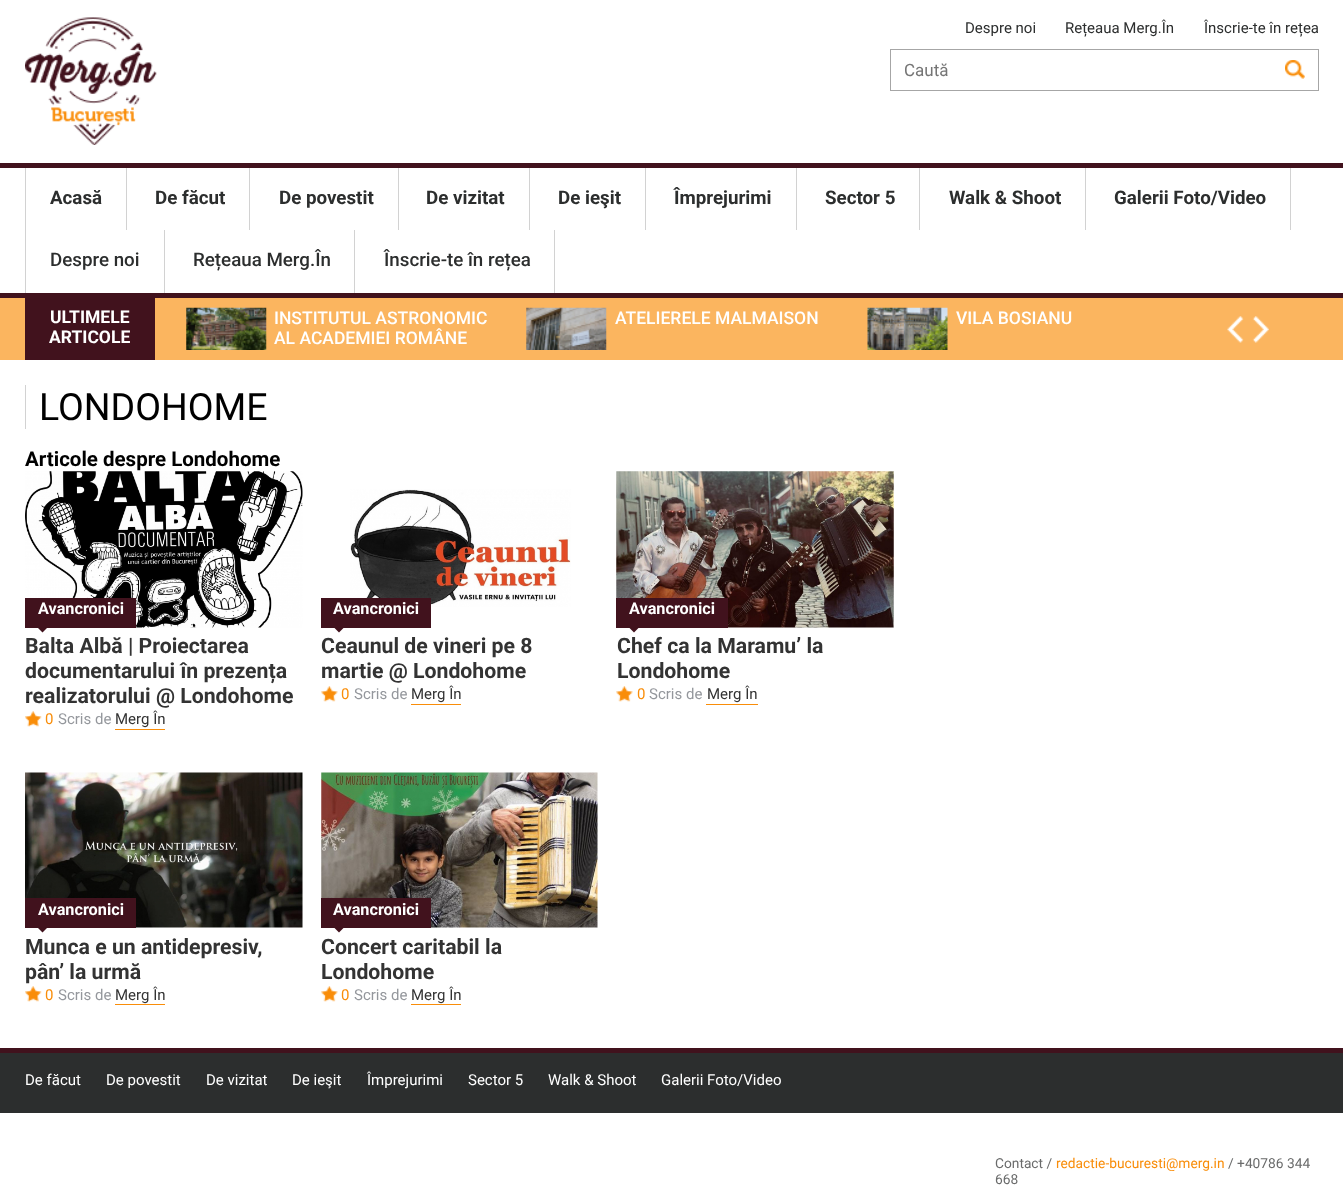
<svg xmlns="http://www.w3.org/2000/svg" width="1343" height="1192">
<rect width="100%" height="100%" fill="#fff"/>
<image x="25" y="17" width="132" height="128" href="media/1.png"/>
<text x="965" y="33" style="font-family:Roboto;font-size:15px;fill:#2c2e2e">Despre noi</text>
<text x="1065" y="33" style="font-family:Roboto;font-size:15px;fill:#2c2e2e">Rețeaua Merg.În</text>
<text x="1204" y="33" style="font-family:Roboto;font-size:15px;fill:#2c2e2e">Înscrie-te în rețea</text>
<rect x="890.5" y="49.5" width="428" height="41" fill="none" stroke="#a6a6a6"/>
<text x="904" y="76" style="font-family:Roboto;font-size:17px;fill:#757575">Caută</text>
<image x="1285" y="60" width="20" height="19" href="media/2.png"/>
<rect y="163" width="1343" height="5" fill="#41121d"/>
<rect x="25" y="168" width="1" height="125" fill="#d2d2d2"/>
<rect x="126" y="168" width="1" height="62" fill="#d2d2d2"/>
<text x="50" y="204" style="font-family:Roboto;font-size:18.75px;font-weight:bold;fill:#2c2e2e">Acasă</text>
<rect x="249" y="168" width="1" height="62" fill="#d2d2d2"/>
<text x="155" y="204" style="font-family:Roboto;font-size:18.75px;font-weight:bold;fill:#2c2e2e">De făcut</text>
<rect x="398" y="168" width="1" height="62" fill="#d2d2d2"/>
<text x="279" y="204" style="font-family:Roboto;font-size:18.75px;font-weight:bold;fill:#2c2e2e">De povestit</text>
<rect x="529" y="168" width="1" height="62" fill="#d2d2d2"/>
<text x="426" y="204" style="font-family:Roboto;font-size:18.75px;font-weight:bold;fill:#2c2e2e">De vizitat</text>
<rect x="645" y="168" width="1" height="62" fill="#d2d2d2"/>
<text x="558" y="204" style="font-family:Roboto;font-size:18.75px;font-weight:bold;fill:#2c2e2e">De ieşit</text>
<rect x="796" y="168" width="1" height="62" fill="#d2d2d2"/>
<text x="674" y="204" style="font-family:Roboto;font-size:18.75px;font-weight:bold;fill:#2c2e2e">Împrejurimi</text>
<rect x="919" y="168" width="1" height="62" fill="#d2d2d2"/>
<text x="825" y="204" style="font-family:Roboto;font-size:18.75px;font-weight:bold;fill:#2c2e2e">Sector 5</text>
<rect x="1085" y="168" width="1" height="62" fill="#d2d2d2"/>
<text x="949" y="204" style="font-family:Roboto;font-size:18.75px;font-weight:bold;fill:#2c2e2e">Walk &amp; Shoot</text>
<rect x="1290" y="168" width="1" height="62" fill="#d2d2d2"/>
<text x="1114" y="204" style="font-family:Roboto;font-size:18.75px;font-weight:bold;fill:#2c2e2e">Galerii Foto/Video</text>
<rect x="164" y="230" width="1" height="63" fill="#d2d2d2"/>
<text x="50" y="266" style="font-family:Roboto;font-size:18.75px;font-weight:500;fill:#2c2e2e">Despre noi</text>
<rect x="354" y="230" width="1" height="63" fill="#d2d2d2"/>
<text x="193" y="266" style="font-family:Roboto;font-size:18.75px;font-weight:500;fill:#2c2e2e">Rețeaua Merg.În</text>
<rect x="554" y="230" width="1" height="63" fill="#d2d2d2"/>
<text x="384" y="266" style="font-family:Roboto;font-size:18.75px;font-weight:500;fill:#2c2e2e">Înscrie-te în rețea</text>
<rect y="298" width="1343" height="62" fill="#fbb55f"/>
<rect y="293" width="1343" height="5" fill="#41121d"/>
<rect x="25" y="298" width="130" height="62" fill="#41121d"/>
<text x="50" y="323" style="font-family:Roboto;font-size:17.5px;font-weight:bold;fill:#fff">ULTIMELE</text>
<text x="49" y="343" style="font-family:Roboto;font-size:17.5px;font-weight:bold;fill:#fff">ARTICOLE</text>
<image x="186" y="307" width="81" height="43" href="media/3.png"/>
<text x="274" y="324" style="font-family:Roboto;font-size:17.5px;font-weight:500;fill:#fff">INSTITUTUL ASTRONOMIC</text>
<text x="274" y="344" style="font-family:Roboto;font-size:17.5px;font-weight:500;fill:#fff">AL ACADEMIEI ROMÂNE</text>
<image x="526" y="307" width="81" height="43" href="media/4.png"/>
<text x="615" y="324" style="font-family:Roboto;font-size:17.5px;font-weight:500;fill:#fff">ATELIERELE MALMAISON</text>
<image x="867" y="307" width="81" height="43" href="media/5.png"/>
<text x="956" y="324" style="font-family:Roboto;font-size:17.5px;font-weight:500;fill:#fff">VILA BOSIANU</text>
<image x="1227" y="316" width="17" height="27" href="media/6.png"/>
<image x="1252" y="316" width="17" height="27" href="media/7.png"/>
<rect x="25" y="385" width="1" height="44" fill="#d2d2d2"/>
<text x="39" y="420" style="font-family:Roboto;font-size:37.5px;fill:#000">LONDOHOME</text>
<text x="25" y="466" style="font-family:Roboto;font-size:20.5px;font-weight:bold;fill:#000">Articole despre Londohome</text>
<image x="25" y="471" width="278" height="157" href="media/8.png"/>
<rect x="25" y="598" width="111" height="30" fill="#41121d"/>
<text x="38" y="614" style="font-family:Roboto;font-size:16.25px;font-weight:bold;fill:#fff">Avancronici</text>
<path d="M37.5 627.5h10l-5 5z" fill="#41121d"/>
<text x="25" y="653" style="font-family:Roboto;font-size:21.25px;font-weight:bold;fill:#333">Balta Albă | Proiectarea</text>
<text x="25" y="678" style="font-family:Roboto;font-size:21.25px;font-weight:bold;fill:#333">documentarului în prezența</text>
<text x="25" y="703" style="font-family:Roboto;font-size:21.25px;font-weight:bold;fill:#333">realizatorului @ Londohome</text>
<image x="25" y="711" width="17" height="16" href="media/9.png"/>
<text x="45" y="724" style="font-family:Roboto;font-size:15px;fill:#f98d09">0</text>
<text x="58" y="724" style="font-family:Roboto;font-size:15px;fill:#94979c">Scris de</text>
<text x="115" y="724" style="font-family:Roboto;font-size:15px;fill:#333">Merg În</text>
<rect x="115" y="729" width="50" height="1" fill="#f98d09"/>
<image x="350" y="489" width="221" height="118" href="media/10.png"/>
<rect x="321" y="598" width="110" height="30" fill="#41121d"/>
<text x="333" y="614" style="font-family:Roboto;font-size:16.25px;font-weight:bold;fill:#fff">Avancronici</text>
<path d="M334 627.5h10l-5 5z" fill="#41121d"/>
<text x="321" y="653" style="font-family:Roboto;font-size:21.25px;font-weight:bold;fill:#333">Ceaunul de vineri pe 8</text>
<text x="321" y="678" style="font-family:Roboto;font-size:21.25px;font-weight:bold;fill:#333">martie @ Londohome</text>
<image x="321" y="686" width="17" height="16" href="media/11.png"/>
<text x="341" y="699" style="font-family:Roboto;font-size:15px;fill:#f98d09">0</text>
<text x="354" y="699" style="font-family:Roboto;font-size:15px;fill:#94979c">Scris de</text>
<text x="411" y="699" style="font-family:Roboto;font-size:15px;fill:#333">Merg În</text>
<rect x="411" y="704" width="50" height="1" fill="#f98d09"/>
<image x="616" y="471" width="278" height="157" href="media/12.png"/>
<rect x="616" y="598" width="112" height="30" fill="#41121d"/>
<text x="629" y="614" style="font-family:Roboto;font-size:16.25px;font-weight:bold;fill:#fff">Avancronici</text>
<path d="M629 627.5h10l-5 5z" fill="#41121d"/>
<text x="617" y="653" style="font-family:Roboto;font-size:21.25px;font-weight:bold;fill:#333">Chef ca la Maramu’ la</text>
<text x="617" y="678" style="font-family:Roboto;font-size:21.25px;font-weight:bold;fill:#333">Londohome</text>
<image x="616" y="686" width="17" height="16" href="media/11.png"/>
<text x="637" y="699" style="font-family:Roboto;font-size:15px;fill:#f98d09">0</text>
<text x="649" y="699" style="font-family:Roboto;font-size:15px;fill:#94979c">Scris de</text>
<text x="707" y="699" style="font-family:Roboto;font-size:15px;fill:#333">Merg În</text>
<rect x="706" y="704" width="52" height="1" fill="#f98d09"/>
<image x="25" y="772" width="278" height="156" href="media/13.png"/>
<rect x="25" y="898" width="111" height="30" fill="#41121d"/>
<text x="38" y="915" style="font-family:Roboto;font-size:16.25px;font-weight:bold;fill:#fff">Avancronici</text>
<path d="M37.5 927.5h10l-5 5z" fill="#41121d"/>
<text x="25" y="954" style="font-family:Roboto;font-size:21.25px;font-weight:bold;fill:#333">Munca e un antidepresiv,</text>
<text x="25" y="979" style="font-family:Roboto;font-size:21.25px;font-weight:bold;fill:#333">pân’ la urmă</text>
<image x="25" y="986" width="17" height="16" href="media/9.png"/>
<text x="45" y="1000" style="font-family:Roboto;font-size:15px;fill:#f98d09">0</text>
<text x="58" y="1000" style="font-family:Roboto;font-size:15px;fill:#94979c">Scris de</text>
<text x="115" y="1000" style="font-family:Roboto;font-size:15px;fill:#333">Merg În</text>
<rect x="115" y="1004" width="50" height="1" fill="#f98d09"/>
<image x="321" y="772" width="277" height="156" href="media/14.png"/>
<rect x="321" y="898" width="110" height="30" fill="#41121d"/>
<text x="333" y="915" style="font-family:Roboto;font-size:16.25px;font-weight:bold;fill:#fff">Avancronici</text>
<path d="M334 927.5h10l-5 5z" fill="#41121d"/>
<text x="321" y="954" style="font-family:Roboto;font-size:21.25px;font-weight:bold;fill:#333">Concert caritabil la</text>
<text x="321" y="979" style="font-family:Roboto;font-size:21.25px;font-weight:bold;fill:#333">Londohome</text>
<image x="321" y="986" width="17" height="16" href="media/11.png"/>
<text x="341" y="1000" style="font-family:Roboto;font-size:15px;fill:#f98d09">0</text>
<text x="354" y="1000" style="font-family:Roboto;font-size:15px;fill:#94979c">Scris de</text>
<text x="411" y="1000" style="font-family:Roboto;font-size:15px;fill:#333">Merg În</text>
<rect x="411" y="1004" width="50" height="1" fill="#f98d09"/>
<rect y="1053" width="1343" height="60" fill="#2c2e2e"/>
<rect y="1048" width="1343" height="5" fill="#41121d"/>
<text x="25" y="1085" style="font-family:Roboto;font-size:15px;fill:#fff">De făcut</text>
<text x="106" y="1085" style="font-family:Roboto;font-size:15px;fill:#fff">De povestit</text>
<text x="206" y="1085" style="font-family:Roboto;font-size:15px;fill:#fff">De vizitat</text>
<text x="292" y="1085" style="font-family:Roboto;font-size:15px;fill:#fff">De ieşit</text>
<text x="367" y="1085" style="font-family:Roboto;font-size:15px;fill:#fff">Împrejurimi</text>
<text x="468" y="1085" style="font-family:Roboto;font-size:15px;fill:#fff">Sector 5</text>
<text x="548" y="1085" style="font-family:Roboto;font-size:15px;fill:#fff">Walk &amp; Shoot</text>
<text x="661" y="1085" style="font-family:Roboto;font-size:15px;fill:#fff">Galerii Foto/Video</text>
<text x="995" y="1168" style="font-family:Roboto;font-size:13.75px;fill:#6a6b6b">Contact /</text>
<text x="1056" y="1168" style="font-family:Roboto;font-size:13.75px;fill:#f98d09">redactie-bucuresti@merg.in</text>
<text x="1228" y="1168" style="font-family:Roboto;font-size:13.75px;fill:#6a6b6b">/ +40786 344</text>
<text x="995" y="1184" style="font-family:Roboto;font-size:13.75px;fill:#6a6b6b">668</text>
</svg>
